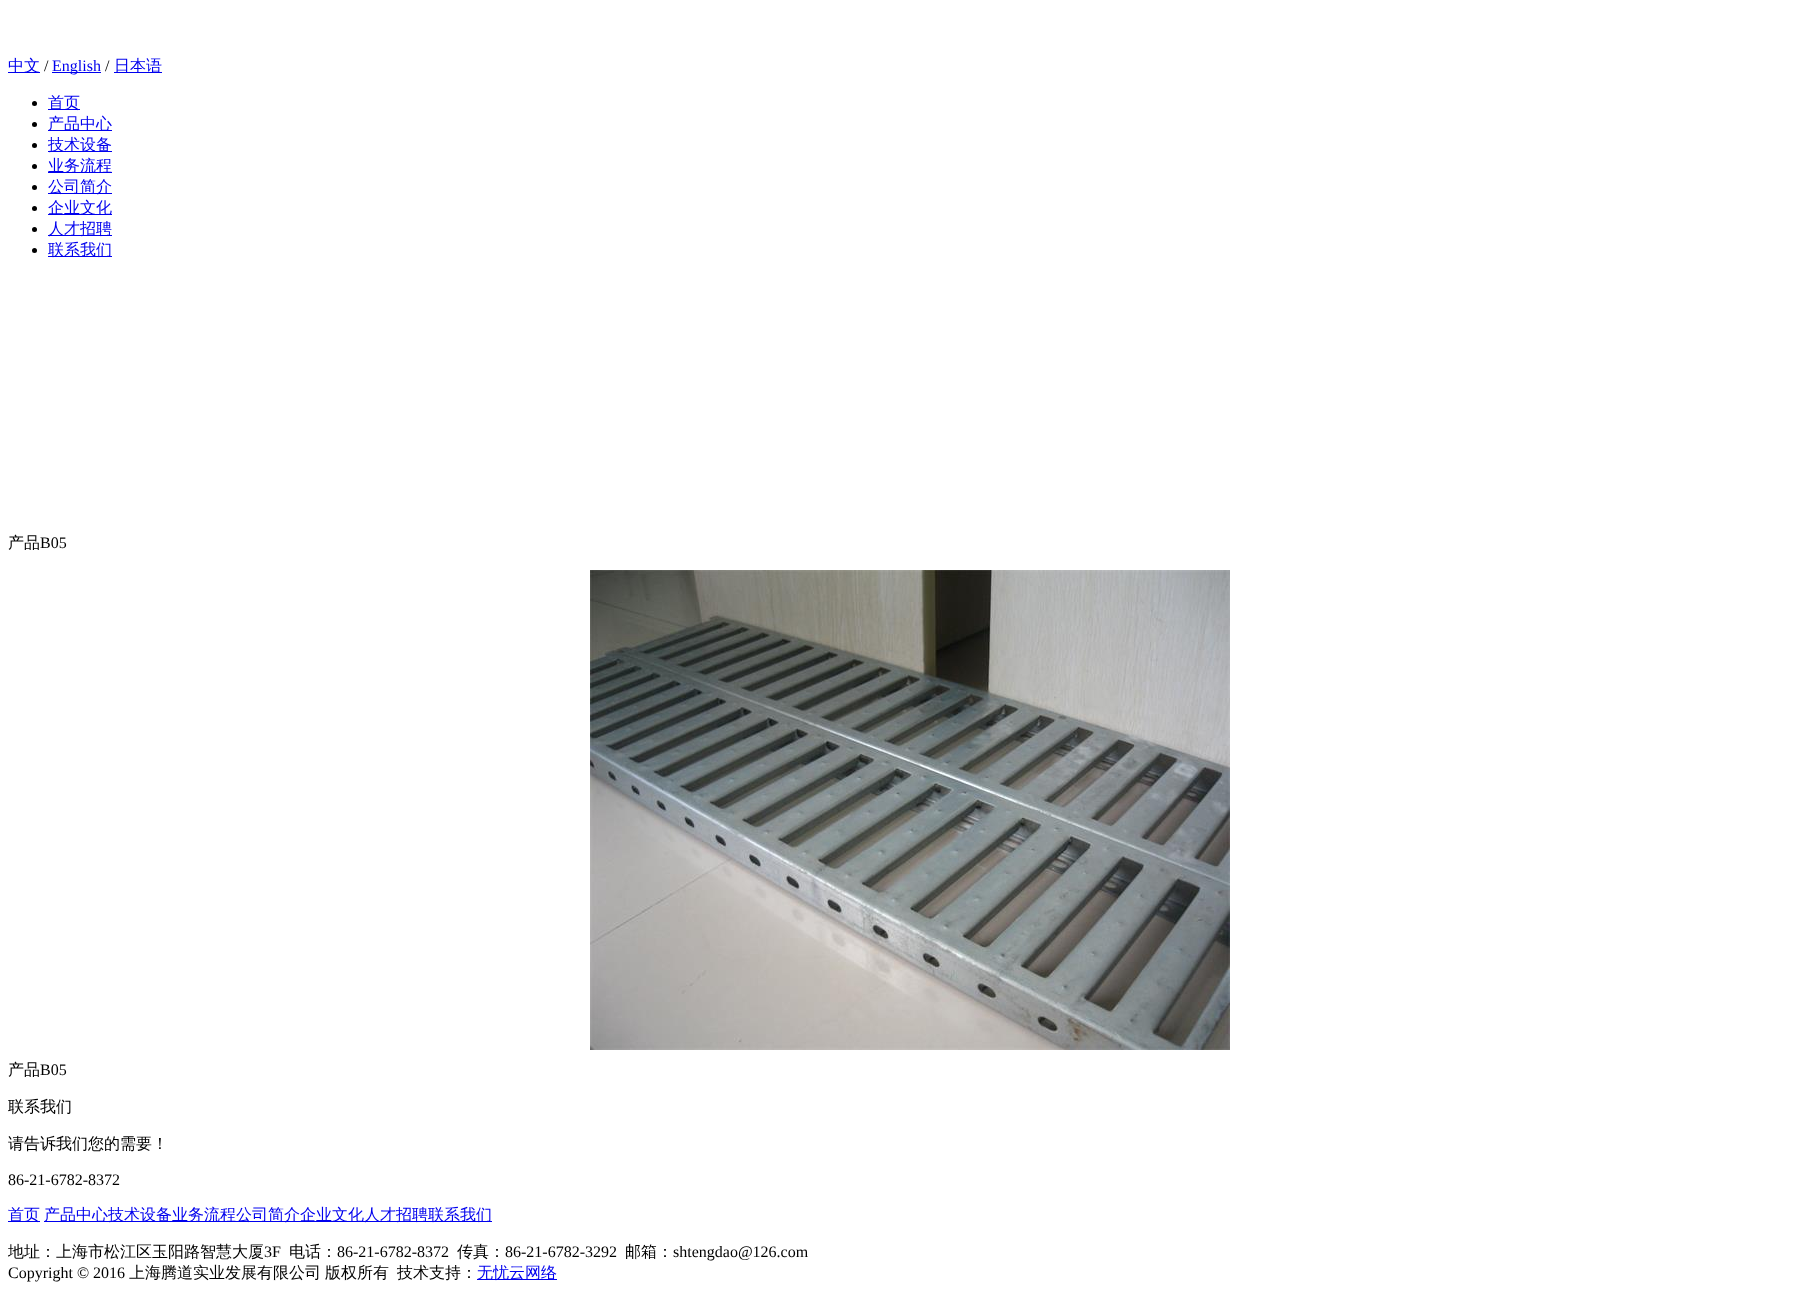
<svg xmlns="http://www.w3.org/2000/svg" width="1819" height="1300">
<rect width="100%" height="100%" fill="#fff"/>
<rect x="8" y="72" width="32" height="1" fill="#00e"/>
<text x="8" y="71" style="font-family:WenQuanYi Zen Hei;font-size:16px;font-weight:500;fill:#00e">中文</text>
<text x="44" y="71" style="font-family:Liberation Serif;font-size:16px;fill:#000">/</text>
<rect x="52" y="72" width="49" height="1" fill="#00e"/>
<text x="52" y="71" style="font-family:Liberation Serif;font-size:16px;fill:#00e">English</text>
<text x="105" y="71" style="font-family:Liberation Serif;font-size:16px;fill:#000">/</text>
<rect x="114" y="72" width="48" height="1" fill="#00e"/>
<text x="114" y="71" style="font-family:WenQuanYi Zen Hei;font-size:16px;font-weight:500;fill:#00e">日本语</text>
<circle cx="34.5" cy="103.5" r="2.5" fill="#000"/>
<rect x="48" y="109" width="32" height="1" fill="#00e"/>
<text x="48" y="108" style="font-family:WenQuanYi Zen Hei;font-size:16px;font-weight:500;fill:#00e">首页</text>
<circle cx="34.5" cy="124.5" r="2.5" fill="#000"/>
<rect x="48" y="130" width="64" height="1" fill="#00e"/>
<text x="48" y="129" style="font-family:WenQuanYi Zen Hei;font-size:16px;font-weight:500;fill:#00e">产品中心</text>
<circle cx="34.5" cy="145.5" r="2.5" fill="#000"/>
<rect x="48" y="151" width="64" height="1" fill="#00e"/>
<text x="48" y="150" style="font-family:WenQuanYi Zen Hei;font-size:16px;font-weight:500;fill:#00e">技术设备</text>
<circle cx="34.5" cy="166.5" r="2.5" fill="#000"/>
<rect x="48" y="172" width="64" height="1" fill="#00e"/>
<text x="48" y="171" style="font-family:WenQuanYi Zen Hei;font-size:16px;font-weight:500;fill:#00e">业务流程</text>
<circle cx="34.5" cy="187.5" r="2.5" fill="#000"/>
<rect x="48" y="193" width="64" height="1" fill="#00e"/>
<text x="48" y="192" style="font-family:WenQuanYi Zen Hei;font-size:16px;font-weight:500;fill:#00e">公司简介</text>
<circle cx="34.5" cy="208.5" r="2.5" fill="#000"/>
<rect x="48" y="214" width="64" height="1" fill="#00e"/>
<text x="48" y="213" style="font-family:WenQuanYi Zen Hei;font-size:16px;font-weight:500;fill:#00e">企业文化</text>
<circle cx="34.5" cy="229.5" r="2.5" fill="#000"/>
<rect x="48" y="235" width="64" height="1" fill="#00e"/>
<text x="48" y="234" style="font-family:WenQuanYi Zen Hei;font-size:16px;font-weight:500;fill:#00e">人才招聘</text>
<circle cx="34.5" cy="250.5" r="2.5" fill="#000"/>
<rect x="48" y="256" width="64" height="1" fill="#00e"/>
<text x="48" y="255" style="font-family:WenQuanYi Zen Hei;font-size:16px;font-weight:500;fill:#00e">联系我们</text>
<text x="8" y="548" style="font-family:WenQuanYi Zen Hei;font-size:16px;font-weight:500;fill:#000">产品</text>
<text x="40" y="548" style="font-family:Liberation Serif;font-size:16px;fill:#000">B05</text>
<image x="590" y="570" width="640" height="480" href="media/1.png"/>
<text x="8" y="1075" style="font-family:WenQuanYi Zen Hei;font-size:16px;font-weight:500;fill:#000">产品</text>
<text x="40" y="1075" style="font-family:Liberation Serif;font-size:16px;fill:#000">B05</text>
<text x="8" y="1112" style="font-family:WenQuanYi Zen Hei;font-size:16px;font-weight:500;fill:#000">联系我们</text>
<text x="8" y="1149" style="font-family:WenQuanYi Zen Hei;font-size:16px;font-weight:500;fill:#000">请告诉我们您的需要！</text>
<text x="8" y="1185" style="font-family:Liberation Serif;font-size:16px;fill:#000">86-21-6782-8372</text>
<rect x="8" y="1221" width="32" height="1" fill="#00e"/>
<text x="8" y="1220" style="font-family:WenQuanYi Zen Hei;font-size:16px;font-weight:500;fill:#00e">首页</text>
<rect x="44" y="1221" width="448" height="1" fill="#00e"/>
<text x="44" y="1220" style="font-family:WenQuanYi Zen Hei;font-size:16px;font-weight:500;fill:#00e">产品中心技术设备业务流程公司简介企业文化人才招聘联系我们</text>
<text x="8" y="1257" style="font-family:WenQuanYi Zen Hei;font-size:16px;font-weight:500;fill:#000">地址：上海市松江区玉阳路智慧大厦</text>
<text x="264" y="1257" style="font-family:Liberation Serif;font-size:16px;fill:#000">3F</text>
<text x="289" y="1257" style="font-family:WenQuanYi Zen Hei;font-size:16px;font-weight:500;fill:#000">电话：</text>
<text x="337" y="1257" style="font-family:Liberation Serif;font-size:16px;fill:#000">86-21-6782-8372</text>
<text x="457" y="1257" style="font-family:WenQuanYi Zen Hei;font-size:16px;font-weight:500;fill:#000">传真：</text>
<text x="505" y="1257" style="font-family:Liberation Serif;font-size:16px;fill:#000">86-21-6782-3292</text>
<text x="625" y="1257" style="font-family:WenQuanYi Zen Hei;font-size:16px;font-weight:500;fill:#000">邮箱：</text>
<text x="673" y="1257" style="font-family:Liberation Serif;font-size:16px;fill:#000">shtengdao@126.com</text>
<text x="8" y="1278" style="font-family:Liberation Serif;font-size:16px;fill:#000">Copyright © 2016</text>
<text x="129" y="1278" style="font-family:WenQuanYi Zen Hei;font-size:16px;font-weight:500;fill:#000">上海腾道实业发展有限公司</text>
<text x="325" y="1278" style="font-family:WenQuanYi Zen Hei;font-size:16px;font-weight:500;fill:#000">版权所有</text>
<text x="397" y="1278" style="font-family:WenQuanYi Zen Hei;font-size:16px;font-weight:500;fill:#000">技术支持：</text>
<rect x="477" y="1279" width="80" height="1" fill="#00e"/>
<text x="477" y="1278" style="font-family:WenQuanYi Zen Hei;font-size:16px;font-weight:500;fill:#00e">无忧云网络</text>
</svg>
